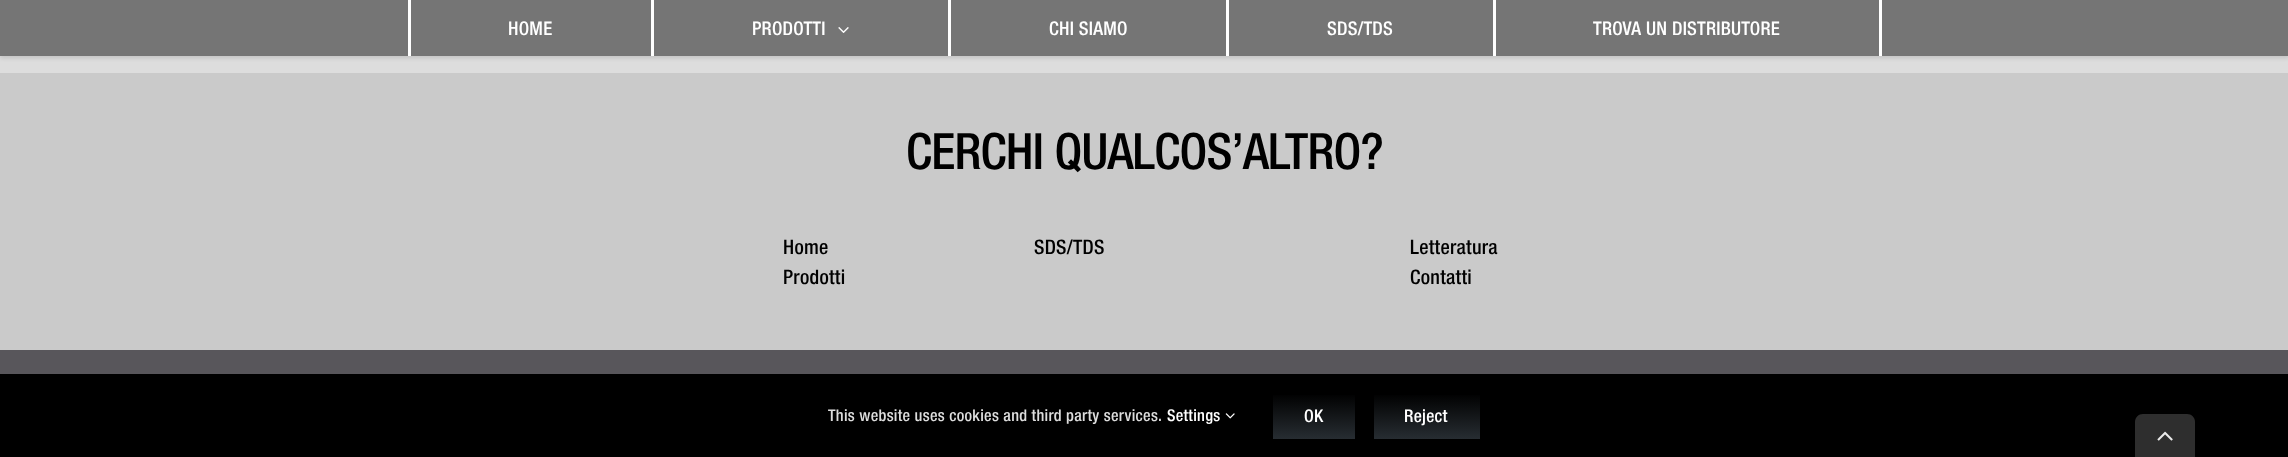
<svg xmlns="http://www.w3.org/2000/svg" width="2288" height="457">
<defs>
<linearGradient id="g1" gradientUnits="userSpaceOnUse" x1="1314" y1="393" x2="1314" y2="439"><stop offset="0" stop-color="#000"/><stop offset="1" stop-color="#272d32"/></linearGradient>
<linearGradient id="g2" gradientUnits="userSpaceOnUse" x1="1427" y1="393" x2="1427" y2="439"><stop offset="0" stop-color="#000"/><stop offset="1" stop-color="#272d32"/></linearGradient>
</defs>
<rect width="100%" height="100%" fill="#ddd"/>
<rect y="1" width="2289" height="57" fill="#0000001f" filter="blur(2px)"/>
<rect width="2288" height="56" fill="#757575"/>
<rect x="408" width="3" height="56" fill="#fff"/>
<text x="508" y="35" style="font-family:Helvetica Neue;font-size:18.75px;font-weight:500;letter-spacing:0.25px;fill:#fff">HOME</text>
<rect x="651" width="3" height="56" fill="#fff"/>
<text x="752" y="35" style="font-family:Helvetica Neue;font-size:18.75px;font-weight:500;letter-spacing:0.25px;fill:#fff">PRODOTTI</text>
<image x="838" y="27" width="11" height="6" href="media/1.png"/>
<rect x="948" width="3" height="56" fill="#fff"/>
<text x="1049" y="35" style="font-family:Helvetica Neue;font-size:18.75px;font-weight:500;letter-spacing:0.25px;fill:#fff">CHI SIAMO</text>
<rect x="1226" width="3" height="56" fill="#fff"/>
<text x="1327" y="35" style="font-family:Helvetica Neue;font-size:18.75px;font-weight:500;letter-spacing:0.25px;fill:#fff">SDS/TDS</text>
<rect x="1879" width="3" height="56" fill="#fff"/>
<rect x="1493" width="3" height="56" fill="#fff"/>
<text x="1593" y="35" style="font-family:Helvetica Neue;font-size:18.75px;font-weight:500;letter-spacing:0.25px;fill:#fff">TROVA UN DISTRIBUTORE</text>
<rect y="73" width="2288" height="277" fill="#cacaca"/>
<text x="906" y="169" style="font-family:Helvetica Neue;font-size:50px;font-weight:500;letter-spacing:-0.75px;fill:#000">CERCHI QUALCOS’ALTRO?</text>
<text x="783" y="254" style="font-family:Helvetica Neue;font-size:20px;font-weight:500;letter-spacing:0.3px;fill:#000">Home</text>
<text x="783" y="284" style="font-family:Helvetica Neue;font-size:20px;font-weight:500;letter-spacing:0.3px;fill:#000">Prodotti</text>
<text x="1034" y="254" style="font-family:Helvetica Neue;font-size:20px;font-weight:500;letter-spacing:0.3px;fill:#000">SDS/TDS</text>
<text x="1410" y="254" style="font-family:Helvetica Neue;font-size:20px;font-weight:500;letter-spacing:0.3px;fill:#000">Letteratura</text>
<text x="1410" y="284" style="font-family:Helvetica Neue;font-size:20px;font-weight:500;letter-spacing:0.3px;fill:#000">Contatti</text>
<rect y="350" width="2288" height="24" fill="#58565b"/>
<rect y="374" width="2288" height="83" fill="#000"/>
<text x="828" y="421" style="font-family:Helvetica Neue;font-size:16.25px;font-weight:500;letter-spacing:0.3px;fill:#ddd">This website uses cookies and third party services.</text>
<text x="1167" y="421" style="font-family:Helvetica Neue;font-size:16.25px;font-weight:500;letter-spacing:0.3px;fill:#fff">Settings</text>
<image x="1225" y="413" width="10" height="6" href="media/2.png"/>
<rect x="1273" y="395" width="82" height="44" fill="url(#g1)"/>
<text x="1304" y="422" style="font-family:Helvetica Neue;font-size:17.5px;font-weight:500;letter-spacing:0.25px;fill:#fff">OK</text>
<rect x="1374" y="395" width="106" height="44" fill="url(#g2)"/>
<text x="1404" y="422" style="font-family:Helvetica Neue;font-size:17.5px;font-weight:500;letter-spacing:0.25px;fill:#fff">Reject</text>
<path d="M2143 414h44c4.5 0 8 3.5 8 8v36h-60v-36c0-4.5 3.5-8 8-8z" fill="#2e2e2e"/>
<image x="2157" y="431" width="16" height="10" href="media/3.png"/>
</svg>
